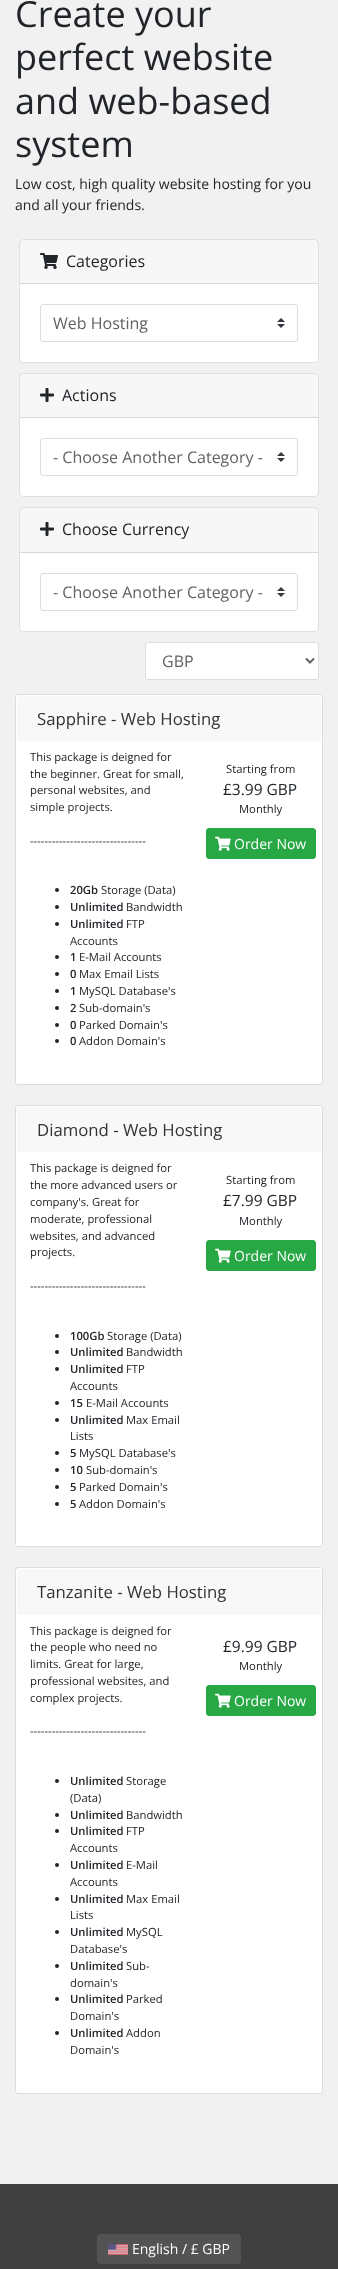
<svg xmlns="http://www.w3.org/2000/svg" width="338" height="2269">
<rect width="100%" height="100%" fill="#f1f1f1"/>
<text x="15" y="27" style="font-family:Open Sans;font-size:36px;fill:#212529">Create your</text>
<text x="15" y="70" style="font-family:Open Sans;font-size:36px;fill:#212529">perfect website</text>
<text x="15" y="114" style="font-family:Open Sans;font-size:36px;fill:#212529">and web-based</text>
<text x="15" y="157" style="font-family:Open Sans;font-size:36px;fill:#212529">system</text>
<text x="15" y="189" style="font-family:Open Sans;font-size:14px;fill:#212529">Low cost, high quality website hosting for you</text>
<text x="15" y="210" style="font-family:Open Sans;font-size:14px;fill:#212529">and all your friends.</text>
<rect x="19" y="239" width="300" height="124" rx="4" fill="#fff"/>
<rect x="19.5" y="239.5" width="299" height="123" rx="3.5" fill="none" stroke="#0000001f"/>
<rect x="20" y="240" width="298" height="43" fill="#00000008"/>
<rect x="20" y="283" width="298" height="1" fill="#d8d8d8"/>
<image x="40" y="253" width="18" height="16" href="media/1.png"/>
<text x="66" y="267" style="font-family:Open Sans;font-size:16px;fill:#212529">Categories</text>
<image x="277" y="318" width="8" height="10" href="media/2.png"/>
<rect x="40.5" y="304.5" width="257" height="37" rx="2.5" fill="none" stroke="#ddd"/>
<text x="53" y="329" style="font-family:Open Sans;font-size:16px;fill:#626262">Web Hosting</text>
<rect x="19" y="373" width="300" height="124" rx="4" fill="#fff"/>
<rect x="19.5" y="373.5" width="299" height="123" rx="3.5" fill="none" stroke="#0000001f"/>
<rect x="20" y="374" width="298" height="43" fill="#00000008"/>
<rect x="20" y="417" width="298" height="1" fill="#d8d8d8"/>
<image x="40" y="388" width="14" height="14" href="media/3.png"/>
<text x="62" y="401" style="font-family:Open Sans;font-size:16px;fill:#212529">Actions</text>
<image x="277" y="452" width="8" height="10" href="media/2.png"/>
<rect x="40.5" y="438.5" width="257" height="37" rx="2.5" fill="none" stroke="#ddd"/>
<text x="53" y="463" style="font-family:Open Sans;font-size:16px;fill:#626262">- Choose Another Category -</text>
<rect x="19" y="507" width="300" height="125" rx="4" fill="#fff"/>
<rect x="19.5" y="507.5" width="299" height="124" rx="3.5" fill="none" stroke="#0000001f"/>
<rect x="20" y="508" width="298" height="44" fill="#00000008"/>
<rect x="20" y="552" width="298" height="1" fill="#d8d8d8"/>
<image x="40" y="522" width="14" height="14" href="media/3.png"/>
<text x="62" y="535" style="font-family:Open Sans;font-size:16px;fill:#212529">Choose Currency</text>
<image x="277" y="587" width="8" height="10" href="media/2.png"/>
<rect x="40.5" y="573.5" width="257" height="37" rx="2.5" fill="none" stroke="#ddd"/>
<text x="53" y="598" style="font-family:Open Sans;font-size:16px;fill:#626262">- Choose Another Category -</text>
<rect x="145.5" y="642.5" width="173" height="37" rx="2.5" fill="#fff" stroke="#ddd"/>
<path d="M306 658.5l4 4l4-4" fill="none" stroke="#626262" stroke-width="2"/>
<text x="162" y="667" style="font-family:Open Sans;font-size:16px;fill:#626262">GBP</text>
<rect x="15.5" y="694.5" width="307" height="390" rx="2.5" fill="#fff" stroke="#ddd"/>
<path d="M20 696h298c1.5 0 3 1.5 3 3v42h-304v-42c0-1.5 1.5-3 3-3z" fill="#f8f8f8"/>
<text x="37" y="725" style="font-family:Open Sans;font-size:16.75px;fill:#333">Sapphire - Web Hosting</text>
<text x="30" y="761" style="font-family:Open Sans;font-size:11.25px;fill:#212529">This package is deigned for</text>
<text x="30" y="778" style="font-family:Open Sans;font-size:11.25px;fill:#212529">the beginner. Great for small,</text>
<text x="30" y="794" style="font-family:Open Sans;font-size:11.25px;fill:#212529">personal websites, and</text>
<text x="30" y="811" style="font-family:Open Sans;font-size:11.25px;fill:#212529">simple projects.</text>
<text x="30" y="845" style="font-family:Open Sans;font-size:11.25px;fill:#212529">--------------------------------</text>
<circle cx="57" cy="890" r="2" fill="#212529"/>
<text x="70" y="894" style="font-family:Open Sans;font-size:11.25px;font-weight:600;fill:#212529">20Gb</text>
<text x="101" y="894" style="font-family:Open Sans;font-size:11.25px;fill:#212529">Storage (Data)</text>
<circle cx="57" cy="907" r="2" fill="#212529"/>
<text x="70" y="911" style="font-family:Open Sans;font-size:11.25px;font-weight:600;fill:#212529">Unlimited</text>
<text x="126" y="911" style="font-family:Open Sans;font-size:11.25px;fill:#212529">Bandwidth</text>
<circle cx="57" cy="924" r="2" fill="#212529"/>
<text x="70" y="928" style="font-family:Open Sans;font-size:11.25px;font-weight:600;fill:#212529">Unlimited</text>
<text x="126" y="928" style="font-family:Open Sans;font-size:11.25px;fill:#212529">FTP</text>
<text x="70" y="945" style="font-family:Open Sans;font-size:11.25px;fill:#212529">Accounts</text>
<circle cx="57" cy="957" r="2" fill="#212529"/>
<text x="70" y="961" style="font-family:Open Sans;font-size:11.25px;font-weight:600;fill:#212529">1</text>
<text x="79" y="961" style="font-family:Open Sans;font-size:11.25px;fill:#212529">E-Mail Accounts</text>
<circle cx="57" cy="974" r="2" fill="#212529"/>
<text x="70" y="978" style="font-family:Open Sans;font-size:11.25px;font-weight:600;fill:#212529">0</text>
<text x="79" y="978" style="font-family:Open Sans;font-size:11.25px;fill:#212529">Max Email Lists</text>
<circle cx="57" cy="991" r="2" fill="#212529"/>
<text x="70" y="995" style="font-family:Open Sans;font-size:11.25px;font-weight:600;fill:#212529">1</text>
<text x="79" y="995" style="font-family:Open Sans;font-size:11.25px;fill:#212529">MySQL Database's</text>
<circle cx="57" cy="1008" r="2" fill="#212529"/>
<text x="70" y="1012" style="font-family:Open Sans;font-size:11.25px;font-weight:600;fill:#212529">2</text>
<text x="79" y="1012" style="font-family:Open Sans;font-size:11.25px;fill:#212529">Sub-domain's</text>
<circle cx="57" cy="1025" r="2" fill="#212529"/>
<text x="70" y="1029" style="font-family:Open Sans;font-size:11.25px;font-weight:600;fill:#212529">0</text>
<text x="79" y="1029" style="font-family:Open Sans;font-size:11.25px;fill:#212529">Parked Domain's</text>
<circle cx="57" cy="1041" r="2" fill="#212529"/>
<text x="70" y="1045" style="font-family:Open Sans;font-size:11.25px;font-weight:600;fill:#212529">0</text>
<text x="79" y="1045" style="font-family:Open Sans;font-size:11.25px;fill:#212529">Addon Domain's</text>
<text x="226" y="773" style="font-family:Open Sans;font-size:11.25px;fill:#212529">Starting from</text>
<text x="223" y="795" style="font-family:Open Sans;font-size:15.5px;fill:#212529">£3.99 GBP</text>
<text x="239" y="813" style="font-family:Open Sans;font-size:11.25px;fill:#212529">Monthly</text>
<rect x="206.5" y="828.5" width="109" height="30" rx="2.5" fill="#28a745" stroke="#28a745"/>
<image x="215" y="836" width="16" height="15" href="media/4.png"/>
<text x="234" y="849" style="font-family:Open Sans;font-size:14px;fill:#fff">Order Now</text>
<rect x="15.5" y="1105.5" width="307" height="441" rx="2.5" fill="#fff" stroke="#ddd"/>
<path d="M20 1107h298c1.5 0 3 1.5 3 3v42h-304v-42c0-1.5 1.5-3 3-3z" fill="#f8f8f8"/>
<text x="37" y="1136" style="font-family:Open Sans;font-size:16.75px;fill:#333">Diamond - Web Hosting</text>
<text x="30" y="1172" style="font-family:Open Sans;font-size:11.25px;fill:#212529">This package is deigned for</text>
<text x="30" y="1189" style="font-family:Open Sans;font-size:11.25px;fill:#212529">the more advanced users or</text>
<text x="30" y="1206" style="font-family:Open Sans;font-size:11.25px;fill:#212529">company's. Great for</text>
<text x="30" y="1223" style="font-family:Open Sans;font-size:11.25px;fill:#212529">moderate, professional</text>
<text x="30" y="1240" style="font-family:Open Sans;font-size:11.25px;fill:#212529">websites, and advanced</text>
<text x="30" y="1256" style="font-family:Open Sans;font-size:11.25px;fill:#212529">projects.</text>
<text x="30" y="1290" style="font-family:Open Sans;font-size:11.25px;fill:#212529">--------------------------------</text>
<circle cx="57" cy="1336" r="2" fill="#212529"/>
<text x="70" y="1340" style="font-family:Open Sans;font-size:11.25px;font-weight:600;fill:#212529">100Gb</text>
<text x="107" y="1340" style="font-family:Open Sans;font-size:11.25px;fill:#212529">Storage (Data)</text>
<circle cx="57" cy="1352" r="2" fill="#212529"/>
<text x="70" y="1356" style="font-family:Open Sans;font-size:11.25px;font-weight:600;fill:#212529">Unlimited</text>
<text x="126" y="1356" style="font-family:Open Sans;font-size:11.25px;fill:#212529">Bandwidth</text>
<circle cx="57" cy="1369" r="2" fill="#212529"/>
<text x="70" y="1373" style="font-family:Open Sans;font-size:11.25px;font-weight:600;fill:#212529">Unlimited</text>
<text x="126" y="1373" style="font-family:Open Sans;font-size:11.25px;fill:#212529">FTP</text>
<text x="70" y="1390" style="font-family:Open Sans;font-size:11.25px;fill:#212529">Accounts</text>
<circle cx="57" cy="1403" r="2" fill="#212529"/>
<text x="70" y="1407" style="font-family:Open Sans;font-size:11.25px;font-weight:600;fill:#212529">15</text>
<text x="86" y="1407" style="font-family:Open Sans;font-size:11.25px;fill:#212529">E-Mail Accounts</text>
<circle cx="57" cy="1420" r="2" fill="#212529"/>
<text x="70" y="1424" style="font-family:Open Sans;font-size:11.25px;font-weight:600;fill:#212529">Unlimited</text>
<text x="126" y="1424" style="font-family:Open Sans;font-size:11.25px;fill:#212529">Max Email</text>
<text x="70" y="1440" style="font-family:Open Sans;font-size:11.25px;fill:#212529">Lists</text>
<circle cx="57" cy="1453" r="2" fill="#212529"/>
<text x="70" y="1457" style="font-family:Open Sans;font-size:11.25px;font-weight:600;fill:#212529">5</text>
<text x="79" y="1457" style="font-family:Open Sans;font-size:11.25px;fill:#212529">MySQL Database's</text>
<circle cx="57" cy="1470" r="2" fill="#212529"/>
<text x="70" y="1474" style="font-family:Open Sans;font-size:11.25px;font-weight:600;fill:#212529">10</text>
<text x="86" y="1474" style="font-family:Open Sans;font-size:11.25px;fill:#212529">Sub-domain's</text>
<circle cx="57" cy="1487" r="2" fill="#212529"/>
<text x="70" y="1491" style="font-family:Open Sans;font-size:11.25px;font-weight:600;fill:#212529">5</text>
<text x="79" y="1491" style="font-family:Open Sans;font-size:11.25px;fill:#212529">Parked Domain's</text>
<circle cx="57" cy="1504" r="2" fill="#212529"/>
<text x="70" y="1508" style="font-family:Open Sans;font-size:11.25px;font-weight:600;fill:#212529">5</text>
<text x="79" y="1508" style="font-family:Open Sans;font-size:11.25px;fill:#212529">Addon Domain's</text>
<text x="226" y="1184" style="font-family:Open Sans;font-size:11.25px;fill:#212529">Starting from</text>
<text x="223" y="1206" style="font-family:Open Sans;font-size:15.5px;fill:#212529">£7.99 GBP</text>
<text x="239" y="1225" style="font-family:Open Sans;font-size:11.25px;fill:#212529">Monthly</text>
<rect x="206.5" y="1240.5" width="109" height="30" rx="2.5" fill="#28a745" stroke="#28a745"/>
<image x="215" y="1248" width="16" height="15" href="media/4.png"/>
<text x="234" y="1261" style="font-family:Open Sans;font-size:14px;fill:#fff">Order Now</text>
<rect x="15.5" y="1567.5" width="307" height="526" rx="2.5" fill="#fff" stroke="#ddd"/>
<path d="M20 1569h298c1.5 0 3 1.5 3 3v43h-304v-43c0-1.5 1.5-3 3-3z" fill="#f8f8f8"/>
<text x="37" y="1598" style="font-family:Open Sans;font-size:16.75px;fill:#333">Tanzanite - Web Hosting</text>
<text x="30" y="1635" style="font-family:Open Sans;font-size:11.25px;fill:#212529">This package is deigned for</text>
<text x="30" y="1651" style="font-family:Open Sans;font-size:11.25px;fill:#212529">the people who need no</text>
<text x="30" y="1668" style="font-family:Open Sans;font-size:11.25px;fill:#212529">limits. Great for large,</text>
<text x="30" y="1685" style="font-family:Open Sans;font-size:11.25px;fill:#212529">professional websites, and</text>
<text x="30" y="1702" style="font-family:Open Sans;font-size:11.25px;fill:#212529">complex projects.</text>
<text x="30" y="1735" style="font-family:Open Sans;font-size:11.25px;fill:#212529">--------------------------------</text>
<circle cx="57" cy="1781" r="2" fill="#212529"/>
<text x="70" y="1785" style="font-family:Open Sans;font-size:11.25px;font-weight:600;fill:#212529">Unlimited</text>
<text x="126" y="1785" style="font-family:Open Sans;font-size:11.25px;fill:#212529">Storage</text>
<text x="70" y="1802" style="font-family:Open Sans;font-size:11.25px;fill:#212529">(Data)</text>
<circle cx="57" cy="1815" r="2" fill="#212529"/>
<text x="70" y="1819" style="font-family:Open Sans;font-size:11.25px;font-weight:600;fill:#212529">Unlimited</text>
<text x="126" y="1819" style="font-family:Open Sans;font-size:11.25px;fill:#212529">Bandwidth</text>
<circle cx="57" cy="1831" r="2" fill="#212529"/>
<text x="70" y="1835" style="font-family:Open Sans;font-size:11.25px;font-weight:600;fill:#212529">Unlimited</text>
<text x="126" y="1835" style="font-family:Open Sans;font-size:11.25px;fill:#212529">FTP</text>
<text x="70" y="1852" style="font-family:Open Sans;font-size:11.25px;fill:#212529">Accounts</text>
<circle cx="57" cy="1865" r="2" fill="#212529"/>
<text x="70" y="1869" style="font-family:Open Sans;font-size:11.25px;font-weight:600;fill:#212529">Unlimited</text>
<text x="126" y="1869" style="font-family:Open Sans;font-size:11.25px;fill:#212529">E-Mail</text>
<text x="70" y="1886" style="font-family:Open Sans;font-size:11.25px;fill:#212529">Accounts</text>
<circle cx="57" cy="1899" r="2" fill="#212529"/>
<text x="70" y="1903" style="font-family:Open Sans;font-size:11.25px;font-weight:600;fill:#212529">Unlimited</text>
<text x="126" y="1903" style="font-family:Open Sans;font-size:11.25px;fill:#212529">Max Email</text>
<text x="70" y="1919" style="font-family:Open Sans;font-size:11.25px;fill:#212529">Lists</text>
<circle cx="57" cy="1932" r="2" fill="#212529"/>
<text x="70" y="1936" style="font-family:Open Sans;font-size:11.25px;font-weight:600;fill:#212529">Unlimited</text>
<text x="126" y="1936" style="font-family:Open Sans;font-size:11.25px;fill:#212529">MySQL</text>
<text x="70" y="1953" style="font-family:Open Sans;font-size:11.25px;fill:#212529">Database's</text>
<circle cx="57" cy="1966" r="2" fill="#212529"/>
<text x="70" y="1970" style="font-family:Open Sans;font-size:11.25px;font-weight:600;fill:#212529">Unlimited</text>
<text x="126" y="1970" style="font-family:Open Sans;font-size:11.25px;fill:#212529">Sub-</text>
<text x="70" y="1987" style="font-family:Open Sans;font-size:11.25px;fill:#212529">domain's</text>
<circle cx="57" cy="1999" r="2" fill="#212529"/>
<text x="70" y="2003" style="font-family:Open Sans;font-size:11.25px;font-weight:600;fill:#212529">Unlimited</text>
<text x="126" y="2003" style="font-family:Open Sans;font-size:11.25px;fill:#212529">Parked</text>
<text x="70" y="2020" style="font-family:Open Sans;font-size:11.25px;fill:#212529">Domain's</text>
<circle cx="57" cy="2033" r="2" fill="#212529"/>
<text x="70" y="2037" style="font-family:Open Sans;font-size:11.25px;font-weight:600;fill:#212529">Unlimited</text>
<text x="126" y="2037" style="font-family:Open Sans;font-size:11.25px;fill:#212529">Addon</text>
<text x="70" y="2054" style="font-family:Open Sans;font-size:11.25px;fill:#212529">Domain's</text>
<text x="223" y="1652" style="font-family:Open Sans;font-size:15.5px;fill:#212529">£9.99 GBP</text>
<text x="239" y="1670" style="font-family:Open Sans;font-size:11.25px;fill:#212529">Monthly</text>
<rect x="206.5" y="1685.5" width="109" height="30" rx="2.5" fill="#28a745" stroke="#28a745"/>
<image x="215" y="1693" width="16" height="15" href="media/4.png"/>
<text x="234" y="1706" style="font-family:Open Sans;font-size:14px;fill:#fff">Order Now</text>
<rect y="2184" width="338" height="85" fill="#404040"/>
<rect x="97" y="2234" width="144" height="30" rx="4" fill="#535353"/>
<rect x="108" y="2244" width="20" height="11" fill="#888" filter="blur(0.5px)"/>
<image x="108" y="2244" width="20" height="11" href="media/5.png"/>
<text x="132" y="2254" style="font-family:Open Sans;font-size:14px;fill:#fff">English / £ GBP</text>
</svg>
